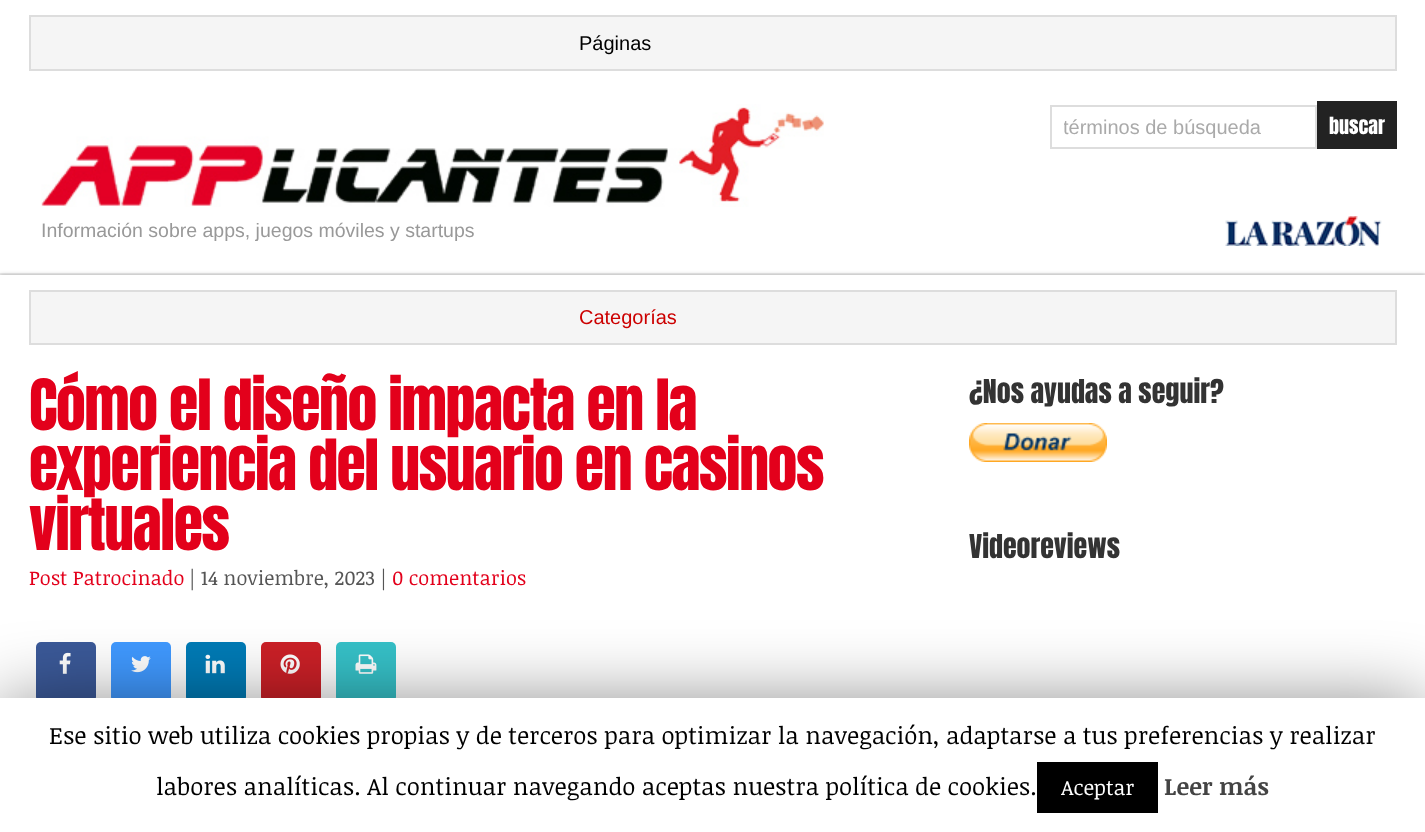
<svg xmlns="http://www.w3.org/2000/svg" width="1425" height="832">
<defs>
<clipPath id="clip1"><rect x="1064" y="116" width="240" height="22"/></clipPath>
</defs>
<rect width="100%" height="100%" fill="#eee"/>
<rect width="1425" height="273" fill="#fff"/>
<rect x="30" y="16" width="1366" height="54" fill="#f5f5f5" stroke="#ddd" stroke-width="2"/>
<text x="579" y="50" style="font-family:Liberation Sans;font-size:20px;fill:#000">Páginas</text>
<rect x="1051" y="106" width="265" height="42" fill="none" stroke="#ddd" stroke-width="2"/>
<g clip-path="url(#clip1)">
<text x="1063" y="134" style="font-family:Liberation Sans;font-size:20px;fill:#aaa">términos de búsqueda</text>
</g>
<rect x="1317" y="101" width="80" height="48" fill="#222"/>
<text x="1329" y="134" style="font-family:Anton;font-size:20px;fill:#fff">buscar</text>
<image x="1225" y="216" width="157" height="30" href="media/1.png"/>
<image x="41" y="104" width="783" height="103" href="media/2.png"/>
<text x="41" y="237" style="font-family:Liberation Sans;font-size:19.5px;fill:#999">Información sobre apps, juegos móviles y startups</text>
<rect y="275" width="1425" height="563" fill="#0000004d" filter="blur(2px)"/>
<rect y="275" width="1425" height="423" fill="#fff"/>
<rect x="30" y="291" width="1366" height="53" fill="#f5f5f5" stroke="#ddd" stroke-width="2"/>
<text x="579" y="324" style="font-family:Liberation Sans;font-size:20px;fill:#c00">Categorías</text>
<text x="29" y="430" style="font-family:Anton;font-size:60px;letter-spacing:-1.5px;fill:#e3001b">Cómo el diseño impacta en la</text>
<text x="29" y="490" style="font-family:Anton;font-size:60px;letter-spacing:-1.5px;fill:#e3001b">experiencia del usuario en casinos</text>
<text x="29" y="550" style="font-family:Anton;font-size:60px;letter-spacing:-1.5px;fill:#e3001b">virtuales</text>
<text x="29" y="585" style="font-family:Noticia Text;font-size:20px;fill:#e3001b">Post Patrocinado</text>
<text x="189" y="585" style="font-family:Noticia Text;font-size:20px;fill:#555">| 14 noviembre, 2023 |</text>
<text x="392" y="585" style="font-family:Noticia Text;font-size:20px;fill:#e3001b">0 comentarios</text>
<rect x="36" y="642" width="60" height="60" rx="5" fill="#3b5998"/>
<image x="59" y="652" width="12" height="22" href="media/3.png"/>
<rect x="111" y="642" width="60" height="60" rx="5" fill="#4099ff"/>
<image x="131" y="656" width="20" height="17" href="media/4.png"/>
<rect x="186" y="642" width="60" height="60" rx="5" fill="#007bb6"/>
<image x="205" y="654" width="20" height="20" href="media/5.png"/>
<rect x="261" y="642" width="60" height="60" rx="5" fill="#cb2027"/>
<image x="280" y="654" width="20" height="20" href="media/6.png"/>
<rect x="336" y="642" width="60" height="60" rx="5" fill="#36c1c8"/>
<image x="355" y="654" width="22" height="20" href="media/7.png"/>
<text x="969" y="403" style="font-family:Anton;font-size:28px;fill:#333">¿Nos ayudas a seguir?</text>
<image x="969" y="423" width="138" height="39" href="media/8.png"/>
<text x="969" y="558" style="font-family:Anton;font-size:28px;fill:#333">Videoreviews</text>
<rect y="705" width="1425" height="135" fill="#00000080" filter="blur(37.5px)"/>
<rect y="698" width="1425" height="134" fill="#fff"/>
<text x="49" y="744" style="font-family:Noticia Text;font-size:24px;fill:#000">Ese sitio web utiliza cookies propias y de terceros para optimizar la navegación, adaptarse a tus preferencias y realizar</text>
<text x="156" y="795" style="font-family:Noticia Text;font-size:24px;fill:#000">labores analíticas. Al continuar navegando aceptas nuestra política de cookies.</text>
<rect x="1037" y="762" width="121" height="51" fill="#000"/>
<text x="1061" y="795" style="font-family:Noticia Text;font-size:21px;fill:#fff">Aceptar</text>
<text x="1164" y="795" style="font-family:Noticia Text;font-size:24px;font-weight:bold;fill:#444">Leer más</text>
</svg>
